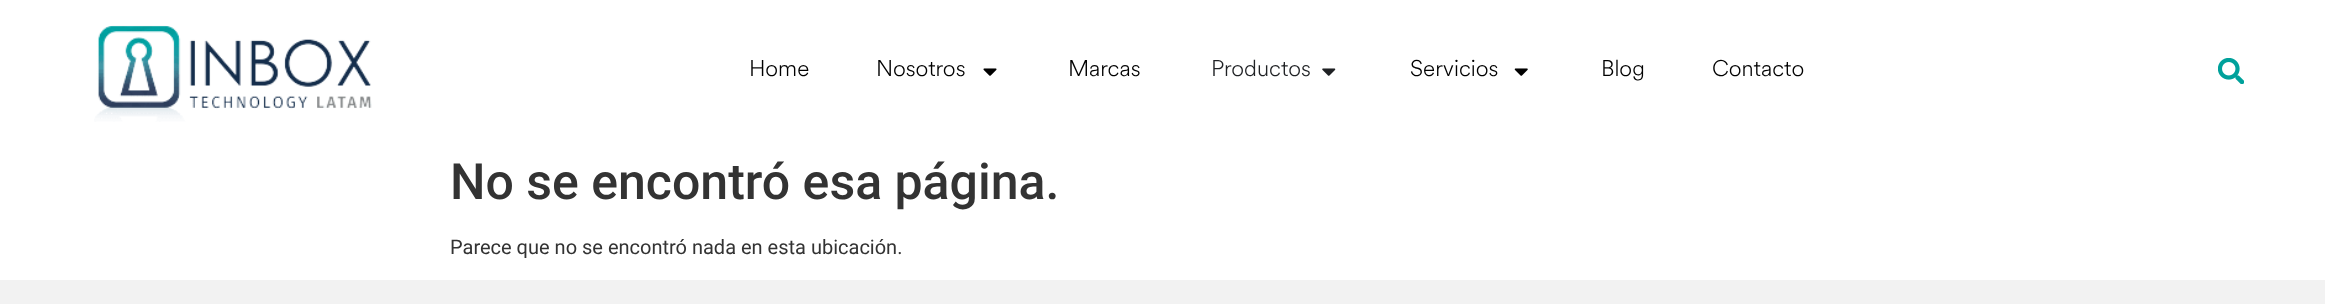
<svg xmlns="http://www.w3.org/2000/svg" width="2325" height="304">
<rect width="100%" height="100%" fill="#fff"/>
<image x="94" y="25" width="278" height="97" href="media/1.png"/>
<text x="749" y="76" style="font-family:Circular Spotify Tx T;font-size:22.5px;font-weight:300;fill:#000">Home</text>
<text x="876" y="76" style="font-family:Circular Spotify Tx T;font-size:22.5px;font-weight:300;fill:#000">Nosotros</text>
<image x="983" y="68" width="14" height="8" href="media/2.png"/>
<text x="1068" y="76" style="font-family:Circular Spotify Tx T;font-size:22.5px;font-weight:300;fill:#000">Marcas</text>
<text x="1211" y="76" style="font-family:Circular Spotify Tx T;font-size:22.5px;font-weight:300;fill:#1f2124">Productos</text>
<image x="1322" y="68" width="14" height="8" href="media/3.png"/>
<text x="1410" y="76" style="font-family:Circular Spotify Tx T;font-size:22.5px;font-weight:300;fill:#000">Servicios</text>
<image x="1514" y="68" width="14" height="8" href="media/4.png"/>
<text x="1601" y="76" style="font-family:Circular Spotify Tx T;font-size:22.5px;font-weight:300;fill:#000">Blog</text>
<text x="1712" y="76" style="font-family:Circular Spotify Tx T;font-size:22.5px;font-weight:300;fill:#000">Contacto</text>
<image x="2218" y="58" width="26" height="26" href="media/5.png"/>
<text x="450" y="199" style="font-family:Roboto;font-size:50px;font-weight:500;fill:#333">No se encontró esa página.</text>
<text x="450" y="254" style="font-family:Roboto;font-size:20px;fill:#333">Parece que no se encontró nada en esta ubicación.</text>
<rect y="280" width="2325" height="24" fill="#f2f2f2"/>
</svg>
